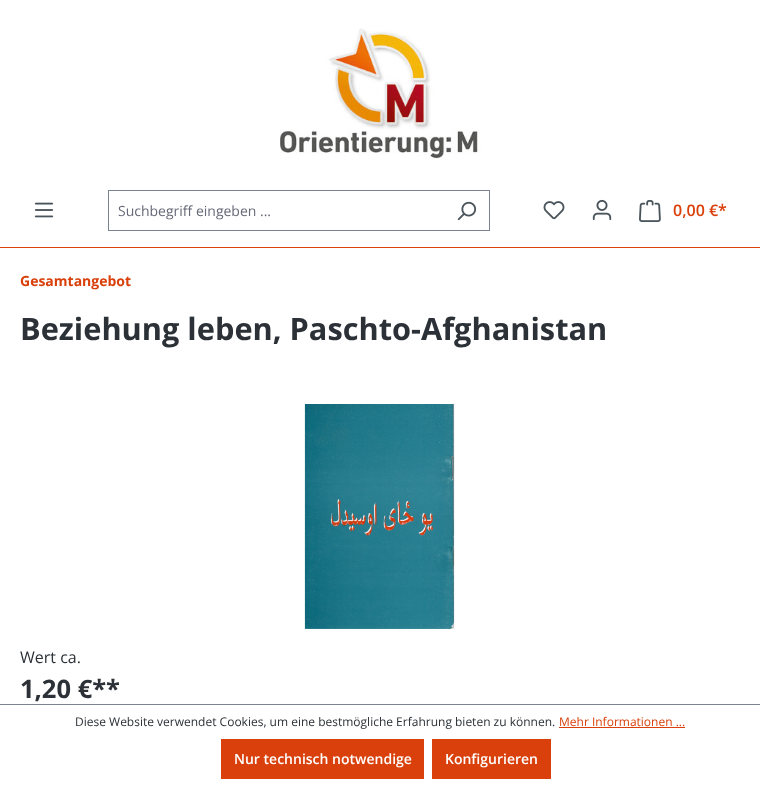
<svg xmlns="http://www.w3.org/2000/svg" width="760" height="787">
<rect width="100%" height="100%" fill="#fff"/>
<image x="280" y="28" width="201" height="131" href="media/1.png"/>
<image x="34" y="202" width="20" height="16" href="media/2.png"/>
<rect x="108" y="190" width="382" height="1" fill="#798490"/>
<rect x="108" y="230" width="336" height="1" fill="#798490"/>
<rect x="108" y="190" width="1" height="41" fill="#798490"/>
<text x="118" y="216" style="font-family:Open Sans;font-size:14px;fill:#666977">Suchbegriff eingeben ...</text>
<rect x="489" y="190" width="1" height="41" fill="#798490"/>
<rect x="443" y="230" width="47" height="1" fill="#798490"/>
<image x="457" y="201" width="20" height="20" href="media/3.png"/>
<image x="543" y="201" width="22" height="19" href="media/4.png"/>
<image x="592" y="199" width="20" height="22" href="media/5.png"/>
<image x="639" y="200" width="22" height="22" href="media/6.png"/>
<text x="673" y="216" style="font-family:Open Sans;font-size:16px;font-weight:600;fill:#d9400b">0,00 €*</text>
<rect y="247" width="760" height="1" fill="#d9400b"/>
<text x="20" y="286" style="font-family:Open Sans;font-size:14px;font-weight:bold;fill:#d9400b">Gesamtangebot</text>
<text x="20" y="340" style="font-family:Open Sans;font-size:30.75px;font-weight:bold;fill:#2b3136">Beziehung leben, Paschto-Afghanistan</text>
<image x="304" y="404" width="151" height="225" href="media/7.png"/>
<text x="20" y="663" style="font-family:Open Sans;font-size:16px;fill:#2b3136">Wert ca.</text>
<text x="20" y="698" style="font-family:Open Sans;font-size:25.5px;font-weight:bold;fill:#2b3136">1,20 €**</text>
<rect y="704" width="760" height="1" fill="#798490"/>
<text x="75" y="726" style="font-family:Open Sans;font-size:12px;fill:#2b3136">Diese Website verwendet Cookies, um eine bestmögliche Erfahrung bieten zu können.</text>
<text x="559" y="726" style="font-family:Open Sans;font-size:12px;fill:#d9400b">Mehr Informationen ...</text>
<rect x="559" y="727" width="126" height="1" fill="#d9400b"/>
<rect x="221" y="739" width="203" height="40" fill="#d9400b"/>
<text x="234" y="764" style="font-family:Open Sans;font-size:14px;font-weight:600;fill:#fff">Nur technisch notwendige</text>
<rect x="432" y="739" width="119" height="40" fill="#d9400b"/>
<text x="445" y="764" style="font-family:Open Sans;font-size:14px;font-weight:600;fill:#fff">Konfigurieren</text>
</svg>
